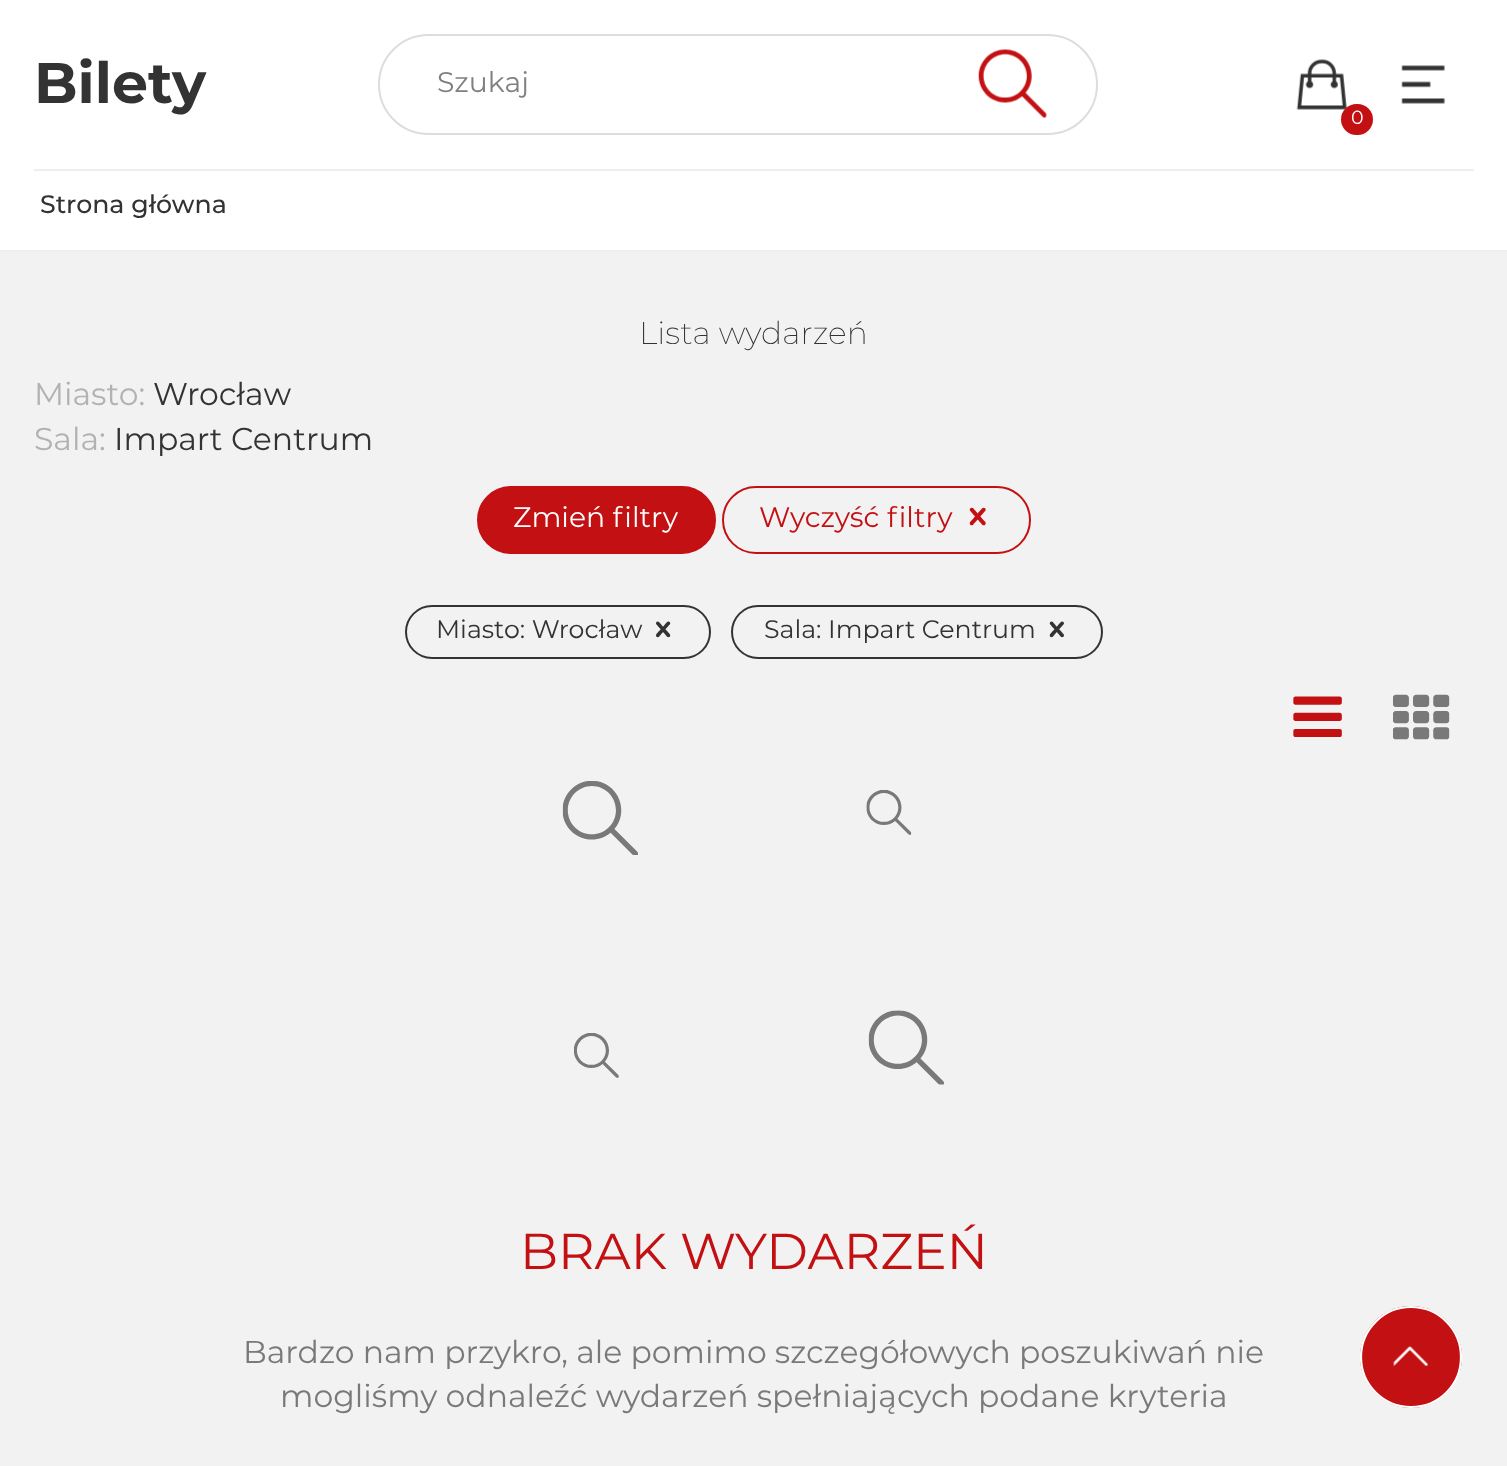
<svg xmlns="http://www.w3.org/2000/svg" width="1507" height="1466">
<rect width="100%" height="100%" fill="#f2f2f2"/>
<rect width="1507" height="250" fill="#fff"/>
<rect y="250" width="1507" height="2" fill="#eee"/>
<text x="34" y="103" style="font-family:Montserrat;font-size:57px;font-weight:100;fill:#333">Bilety</text>
<rect x="379" y="35" width="718" height="99" rx="49.5" fill="none" stroke="#ddd" stroke-width="2"/>
<text x="437" y="92" style="font-family:Montserrat;font-size:28.25px;fill:#808080">Szukaj</text>
<image x="978" y="49" width="69" height="69" href="media/1.png"/>
<image x="1401" y="65" width="44" height="39" href="media/2.png"/>
<image x="1296" y="59" width="51" height="51" href="media/3.png"/>
<rect x="1341" y="104" width="32" height="31" rx="15.5" fill="#c31013"/>
<text x="1351" y="124" style="font-family:Montserrat;font-size:19px;fill:#fff">0</text>
<rect x="34" y="169" width="1440" height="2" fill="#eee"/>
<text x="40" y="213" style="font-family:Montserrat;font-size:25.25px;font-weight:500;fill:#333">Strona główna</text>
<text x="639" y="344" style="font-family:Montserrat;font-size:31.5px;font-weight:300;fill:#333">Lista wydarzeń</text>
<text x="34" y="405" style="font-family:Montserrat;font-size:31.5px;fill:#b3b2b2">Miasto:</text>
<text x="153" y="405" style="font-family:Montserrat;font-size:31.5px;fill:#333">Wrocław</text>
<text x="34" y="450" style="font-family:Montserrat;font-size:31.5px;fill:#b3b2b2">Sala:</text>
<text x="114" y="450" style="font-family:Montserrat;font-size:31.5px;fill:#333">Impart Centrum</text>
<rect x="478" y="487" width="237" height="66" rx="33" fill="#c31013" stroke="#c31013" stroke-width="2"/>
<text x="513" y="527" style="font-family:Montserrat;font-size:28.25px;fill:#fff">Zmień filtry</text>
<rect x="723" y="487" width="307" height="66" rx="33" fill="none" stroke="#c31013" stroke-width="2"/>
<text x="759" y="527" style="font-family:Montserrat;font-size:28.25px;fill:#c31013">Wyczyść filtry</text>
<image x="969" y="507" width="17" height="19" href="media/4.png"/>
<rect x="406" y="606" width="304" height="52" rx="26" fill="none" stroke="#333" stroke-width="2"/>
<text x="436" y="638" style="font-family:Montserrat;font-size:25.25px;fill:#333">Miasto: Wrocław</text>
<image x="656" y="621" width="15" height="17" href="media/5.png"/>
<rect x="732" y="606" width="370" height="52" rx="26" fill="none" stroke="#333" stroke-width="2"/>
<text x="764" y="638" style="font-family:Montserrat;font-size:25.25px;fill:#333">Sala: Impart Centrum</text>
<image x="1049" y="621" width="15" height="17" href="media/6.png"/>
<image x="1293" y="696" width="49" height="41" href="media/7.png"/>
<image x="1393" y="694" width="57" height="46" href="media/8.png"/>
<image x="562" y="781" width="76" height="74" href="media/9.png"/>
<image x="866" y="790" width="46" height="45" href="media/10.png"/>
<image x="574" y="1033" width="45" height="45" href="media/11.png"/>
<image x="868" y="1010" width="76" height="75" href="media/12.png"/>
<text x="520" y="1269" style="font-family:Montserrat;font-size:50.5px;fill:#c31013">BRAK WYDARZEŃ</text>
<text x="243" y="1363" style="font-family:Montserrat;font-size:31.5px;fill:#797979">Bardzo nam przykro, ale pomimo szczegółowych poszukiwań nie</text>
<text x="280" y="1407" style="font-family:Montserrat;font-size:31.5px;fill:#797979">mogliśmy odnaleźć wydarzeń spełniających podane kryteria</text>
<path d="M1462 1357c0 28-23 51-51 51c-28 0-51-23-51-51c0-28 23-51 51-51c28 0 51 23 51 51z" fill="#c31013"/>
<path d="M1461 1357c0 28-22 50-50 50c-27.5 0-50-22-50-50c0-27.5 22.5-50 50-50c28 0 50 22.5 50 50z" fill="none" stroke="#fff" stroke-width="2.2"/>
<image x="1393" y="1346" width="35" height="20" href="media/13.png"/>
</svg>
